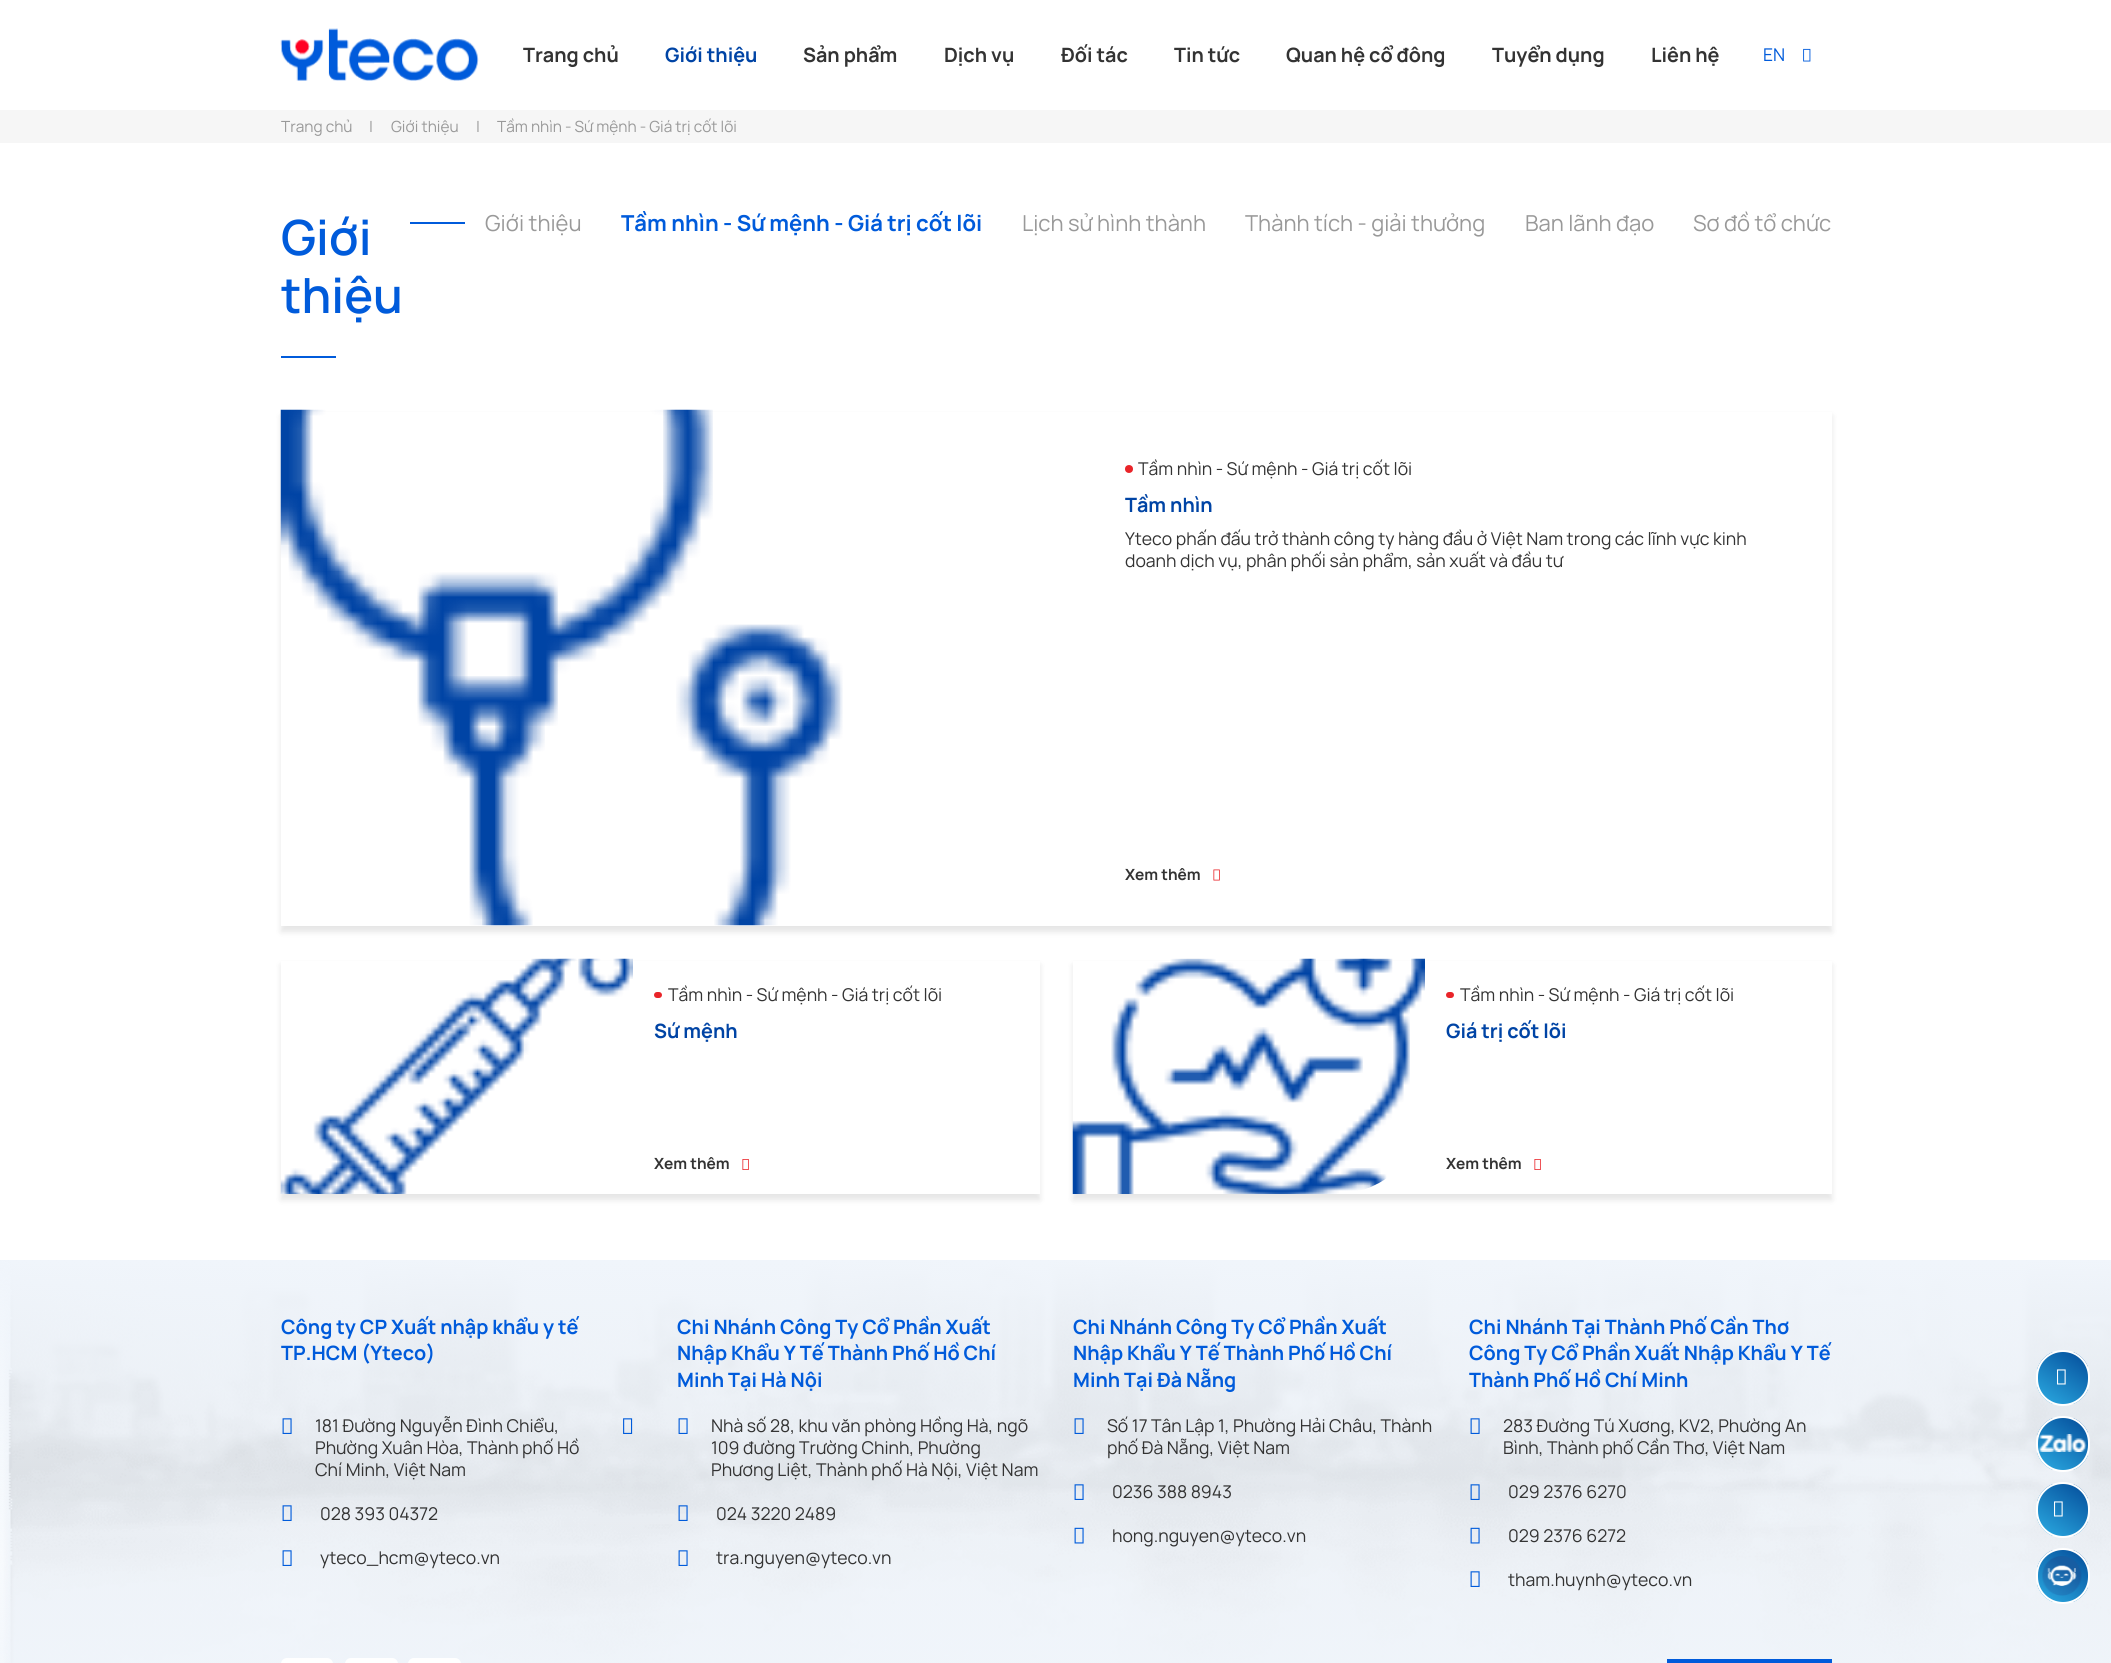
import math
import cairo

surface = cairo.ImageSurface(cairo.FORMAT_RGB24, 2111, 1663)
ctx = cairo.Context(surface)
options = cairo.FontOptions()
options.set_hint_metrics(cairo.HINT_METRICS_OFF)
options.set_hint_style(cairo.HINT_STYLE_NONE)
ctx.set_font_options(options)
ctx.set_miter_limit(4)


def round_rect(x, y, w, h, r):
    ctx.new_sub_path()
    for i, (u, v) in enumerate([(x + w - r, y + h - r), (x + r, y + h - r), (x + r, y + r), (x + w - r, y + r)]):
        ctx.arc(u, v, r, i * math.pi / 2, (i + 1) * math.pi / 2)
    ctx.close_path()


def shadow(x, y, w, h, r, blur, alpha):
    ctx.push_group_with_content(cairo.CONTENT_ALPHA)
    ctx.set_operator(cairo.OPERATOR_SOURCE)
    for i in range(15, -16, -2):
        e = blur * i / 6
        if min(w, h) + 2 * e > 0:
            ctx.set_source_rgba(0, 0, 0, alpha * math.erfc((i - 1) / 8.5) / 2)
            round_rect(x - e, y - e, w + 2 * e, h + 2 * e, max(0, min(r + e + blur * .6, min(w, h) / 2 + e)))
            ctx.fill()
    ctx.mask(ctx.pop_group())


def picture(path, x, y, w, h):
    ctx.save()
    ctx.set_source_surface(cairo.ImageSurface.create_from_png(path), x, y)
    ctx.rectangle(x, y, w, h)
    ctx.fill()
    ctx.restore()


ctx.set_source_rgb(1, 1, 1)
ctx.paint()
picture("img1.png", 280, 28, 199, 53)
ctx.select_font_face("Manrope", cairo.FONT_SLANT_NORMAL, cairo.FONT_WEIGHT_BOLD)
ctx.set_font_size(19.75)
ctx.set_source_rgb(0.2, 0.2, 0.2)
ctx.move_to(523, 62)
ctx.show_text("Trang chủ")
ctx.set_source_rgb(0, 0.267, 0.647)
ctx.move_to(665, 62)
ctx.show_text("Giới thiệu")
ctx.set_source_rgb(0.2, 0.2, 0.2)
ctx.move_to(803, 62)
ctx.show_text("Sản phẩm")
ctx.move_to(944, 62)
ctx.show_text("Dịch vụ")
ctx.move_to(1061, 62)
ctx.show_text("Đối tác")
ctx.move_to(1174, 62)
ctx.show_text("Tin tức")
ctx.move_to(1286, 62)
ctx.show_text("Quan hệ cổ đông")
ctx.move_to(1492, 62)
ctx.show_text("Tuyển dụng")
ctx.move_to(1651, 62)
ctx.show_text("Liên hệ")
ctx.select_font_face("Manrope")
ctx.set_font_size(17.6)
ctx.set_source_rgb(0, 0.357, 0.859)
ctx.move_to(1763, 61)
ctx.show_text("EN")
picture("img2.png", 1803, 48, 8, 14)
ctx.set_source_rgb(0.961, 0.961, 0.961)
ctx.rectangle(0, 110, 2111, 33)
ctx.fill()
ctx.set_font_size(15.4)
ctx.set_source_rgb(0.6, 0.6, 0.6)
ctx.move_to(281, 132)
ctx.show_text("Trang chủ")
ctx.move_to(369, 132)
ctx.show_text("|")
ctx.move_to(391, 132)
ctx.show_text("Giới thiệu")
ctx.move_to(476, 132)
ctx.show_text("|")
ctx.move_to(497, 132)
ctx.show_text("Tầm nhìn - Sứ mệnh - Giá trị cốt lõi")
ctx.select_font_face("Manrope SemiBold")
ctx.set_font_size(48.5)
ctx.set_source_rgb(0, 0.357, 0.859)
ctx.move_to(281, 255)
ctx.show_text("Giới")
ctx.move_to(281, 313)
ctx.show_text("thiệu")
ctx.rectangle(281, 356, 55, 2)
ctx.fill()
ctx.rectangle(410, 222, 55, 2)
ctx.fill()
ctx.select_font_face("Manrope")
ctx.set_font_size(22)
ctx.set_source_rgb(0.6, 0.6, 0.6)
ctx.move_to(485, 231)
ctx.show_text("Giới thiệu")
ctx.select_font_face("Manrope", cairo.FONT_SLANT_NORMAL, cairo.FONT_WEIGHT_BOLD)
ctx.set_source_rgb(0, 0.357, 0.859)
ctx.move_to(621, 231)
ctx.show_text("Tầm nhìn - Sứ mệnh - Giá trị cốt lõi")
ctx.select_font_face("Manrope")
ctx.set_source_rgb(0.6, 0.6, 0.6)
ctx.move_to(1022, 231)
ctx.show_text("Lịch sử hình thành")
ctx.move_to(1245, 231)
ctx.show_text("Thành tích - giải thưởng")
ctx.move_to(1525, 231)
ctx.show_text("Ban lãnh đạo")
ctx.move_to(1693, 231)
ctx.show_text("Sơ đồ tổ chức")
ctx.set_source_rgb(0, 0, 0)
shadow(281, 416, 1551, 516, 0, 3, 0.1)
ctx.set_source_rgb(1, 1, 1)
ctx.rectangle(281, 412, 1551, 514)
ctx.fill()
picture("img3.png", 280, 409, 563, 517)
ctx.set_source_rgb(0.914, 0.141, 0.161)
ctx.arc(1129, 469, 4, 0, 2 * math.pi)
ctx.fill()
ctx.set_font_size(17.6)
ctx.set_source_rgb(0.2, 0.2, 0.2)
ctx.move_to(1138, 475)
ctx.show_text("Tầm nhìn - Sứ mệnh - Giá trị cốt lõi")
ctx.select_font_face("Manrope", cairo.FONT_SLANT_NORMAL, cairo.FONT_WEIGHT_BOLD)
ctx.set_font_size(19.75)
ctx.set_source_rgb(0, 0.267, 0.647)
ctx.move_to(1125, 512)
ctx.show_text("Tầm nhìn")
ctx.select_font_face("Manrope")
ctx.set_font_size(17.6)
ctx.set_source_rgb(0.2, 0.2, 0.2)
ctx.move_to(1125, 545)
ctx.show_text("Yteco phấn đấu trở thành công ty hàng đầu ở Việt Nam trong các lĩnh vực kinh")
ctx.move_to(1125, 567)
ctx.show_text("doanh dịch vụ, phân phối sản phẩm, sản xuất và đầu tư")
ctx.select_font_face("Manrope", cairo.FONT_SLANT_NORMAL, cairo.FONT_WEIGHT_BOLD)
ctx.set_font_size(15.4)
ctx.move_to(1125, 880)
ctx.show_text("Xem thêm")
picture("img4.png", 1213, 869, 7, 12)
ctx.set_source_rgb(0, 0, 0)
shadow(281, 965, 759, 235, 0, 3, 0.1)
ctx.set_source_rgb(1, 1, 1)
ctx.rectangle(281, 961, 759, 233)
ctx.fill()
picture("img5.png", 280, 958, 353, 236)
ctx.set_source_rgb(0.914, 0.141, 0.161)
round_rect(654, 992, 8, 6, 3)
ctx.fill()
ctx.select_font_face("Manrope")
ctx.set_font_size(17.6)
ctx.set_source_rgb(0.2, 0.2, 0.2)
ctx.move_to(668, 1001)
ctx.show_text("Tầm nhìn - Sứ mệnh - Giá trị cốt lõi")
ctx.select_font_face("Manrope", cairo.FONT_SLANT_NORMAL, cairo.FONT_WEIGHT_BOLD)
ctx.set_font_size(19.75)
ctx.set_source_rgb(0, 0.267, 0.647)
ctx.move_to(654, 1038)
ctx.show_text("Sứ mệnh")
ctx.set_font_size(15.4)
ctx.set_source_rgb(0.2, 0.2, 0.2)
ctx.move_to(654, 1169)
ctx.show_text("Xem thêm")
picture("img6.png", 742, 1159, 7, 11)
ctx.set_source_rgb(0, 0, 0)
shadow(1073, 965, 759, 235, 0, 3, 0.1)
ctx.set_source_rgb(1, 1, 1)
ctx.rectangle(1073, 961, 759, 233)
ctx.fill()
picture("img7.png", 1072, 958, 353, 236)
ctx.set_source_rgb(0.914, 0.141, 0.161)
round_rect(1446, 992, 8, 6, 3)
ctx.fill()
ctx.select_font_face("Manrope")
ctx.set_font_size(17.6)
ctx.set_source_rgb(0.2, 0.2, 0.2)
ctx.move_to(1460, 1001)
ctx.show_text("Tầm nhìn - Sứ mệnh - Giá trị cốt lõi")
ctx.select_font_face("Manrope", cairo.FONT_SLANT_NORMAL, cairo.FONT_WEIGHT_BOLD)
ctx.set_font_size(19.75)
ctx.set_source_rgb(0, 0.267, 0.647)
ctx.move_to(1446, 1038)
ctx.show_text("Giá trị cốt lõi")
ctx.set_font_size(15.4)
ctx.set_source_rgb(0.2, 0.2, 0.2)
ctx.move_to(1446, 1169)
ctx.show_text("Xem thêm")
picture("img6.png", 1534, 1159, 7, 11)
picture("img8.png", 0, 1260, 2111, 403)
ctx.set_font_size(19.75)
ctx.set_source_rgb(0, 0.357, 0.859)
ctx.move_to(281, 1334)
ctx.show_text("Công ty CP Xuất nhập khẩu y tế")
ctx.move_to(281, 1360)
ctx.show_text("TP.HCM (Yteco)")
picture("img9.png", 282, 1418, 10, 16)
ctx.select_font_face("Manrope")
ctx.set_font_size(17.6)
ctx.set_source_rgb(0.2, 0.2, 0.2)
ctx.move_to(315, 1432)
ctx.show_text("181 Đường Nguyễn Đình Chiểu,")
picture("img10.png", 623, 1418, 10, 16)
ctx.move_to(315, 1454)
ctx.show_text("Phường Xuân Hòa, Thành phố Hồ")
ctx.move_to(315, 1476)
ctx.show_text("Chí Minh, Việt Nam")
picture("img11.png", 282, 1505, 10, 16)
ctx.move_to(320, 1520)
ctx.show_text("028 393 04372")
picture("img12.png", 282, 1550, 10, 16)
ctx.move_to(320, 1564)
ctx.show_text("yteco_hcm@yteco.vn")
ctx.select_font_face("Manrope", cairo.FONT_SLANT_NORMAL, cairo.FONT_WEIGHT_BOLD)
ctx.set_font_size(19.75)
ctx.set_source_rgb(0, 0.357, 0.859)
ctx.move_to(677, 1334)
ctx.show_text("Chi Nhánh Công Ty Cổ Phần Xuất")
ctx.move_to(677, 1360)
ctx.show_text("Nhập Khẩu Y Tế Thành Phố Hồ Chí")
ctx.move_to(677, 1387)
ctx.show_text("Minh Tại Hà Nội")
picture("img13.png", 678, 1418, 10, 16)
ctx.select_font_face("Manrope")
ctx.set_font_size(17.6)
ctx.set_source_rgb(0.2, 0.2, 0.2)
ctx.move_to(711, 1432)
ctx.show_text("Nhà số 28, khu văn phòng Hồng Hà, ngõ")
ctx.move_to(711, 1454)
ctx.show_text("109 đường Trường Chinh, Phường")
ctx.move_to(711, 1476)
ctx.show_text("Phương Liệt, Thành phố Hà Nội, Việt Nam")
picture("img14.png", 678, 1505, 10, 16)
ctx.move_to(716, 1520)
ctx.show_text("024 3220 2489")
picture("img15.png", 678, 1550, 10, 16)
ctx.move_to(716, 1564)
ctx.show_text("tra.nguyen@yteco.vn")
ctx.select_font_face("Manrope", cairo.FONT_SLANT_NORMAL, cairo.FONT_WEIGHT_BOLD)
ctx.set_font_size(19.75)
ctx.set_source_rgb(0, 0.357, 0.859)
ctx.move_to(1073, 1334)
ctx.show_text("Chi Nhánh Công Ty Cổ Phần Xuất")
ctx.move_to(1073, 1360)
ctx.show_text("Nhập Khẩu Y Tế Thành Phố Hồ Chí")
ctx.move_to(1073, 1387)
ctx.show_text("Minh Tại Đà Nẵng")
picture("img16.png", 1074, 1418, 10, 16)
ctx.select_font_face("Manrope")
ctx.set_font_size(17.6)
ctx.set_source_rgb(0.2, 0.2, 0.2)
ctx.move_to(1107, 1432)
ctx.show_text("Số 17 Tân Lập 1, Phường Hải Châu, Thành")
ctx.move_to(1107, 1454)
ctx.show_text("phố Đà Nẵng, Việt Nam")
picture("img17.png", 1074, 1484, 10, 16)
ctx.move_to(1112, 1498)
ctx.show_text("0236 388 8943")
picture("img18.png", 1074, 1527, 10, 17)
ctx.move_to(1112, 1542)
ctx.show_text("hong.nguyen@yteco.vn")
ctx.select_font_face("Manrope", cairo.FONT_SLANT_NORMAL, cairo.FONT_WEIGHT_BOLD)
ctx.set_font_size(19.75)
ctx.set_source_rgb(0, 0.357, 0.859)
ctx.move_to(1469, 1334)
ctx.show_text("Chi Nhánh Tại Thành Phố Cần Thơ")
ctx.move_to(1469, 1360)
ctx.show_text("Công Ty Cổ Phần Xuất Nhập Khẩu Y Tế")
ctx.move_to(1469, 1387)
ctx.show_text("Thành Phố Hồ Chí Minh")
picture("img19.png", 1470, 1418, 10, 16)
ctx.select_font_face("Manrope")
ctx.set_font_size(17.6)
ctx.set_source_rgb(0.2, 0.2, 0.2)
ctx.move_to(1503, 1432)
ctx.show_text("283 Đường Tú Xương, KV2, Phường An")
ctx.move_to(1503, 1454)
ctx.show_text("Bình, Thành phố Cần Thơ, Việt Nam")
picture("img20.png", 1470, 1484, 10, 16)
ctx.move_to(1508, 1498)
ctx.show_text("029 2376 6270")
picture("img21.png", 1470, 1527, 10, 17)
ctx.move_to(1508, 1542)
ctx.show_text("029 2376 6272")
picture("img22.png", 1470, 1571, 10, 16)
ctx.move_to(1508, 1586)
ctx.show_text("tham.huynh@yteco.vn")
ctx.set_source_rgb(1, 1, 1)
round_rect(281, 1658, 52, 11, 6)
ctx.fill()
round_rect(345, 1658, 53, 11, 6)
ctx.fill()
round_rect(408, 1658, 53, 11, 6)
ctx.fill()
ctx.set_source_rgb(0, 0.357, 0.859)
ctx.rectangle(1667, 1659, 165, 4)
ctx.fill()
ctx.save()
round_rect(2036, 1350, 54, 56, 27)
ctx.clip()
gradient = cairo.LinearGradient(2083, 1348, 2042, 1407)
gradient.add_color_stop_rgba(0.07, 0.024, 0.322, 0.62, 1)
gradient.add_color_stop_rgba(0.97, 0.165, 0.659, 0.878, 1)
ctx.set_source(gradient)
ctx.rectangle(2037, 1352, 51, 52)
ctx.fill()
ctx.restore()
round_rect(2037, 1351, 52, 54, 26)
ctx.set_source_rgb(1, 1, 1)
ctx.stroke()
picture("img23.png", 2057, 1369, 9, 16)
ctx.save()
round_rect(2036, 1416, 54, 56, 27)
ctx.clip()
gradient = cairo.LinearGradient(2083, 1414, 2042, 1473)
gradient.add_color_stop_rgba(0.07, 0.024, 0.322, 0.62, 1)
gradient.add_color_stop_rgba(0.97, 0.165, 0.659, 0.878, 1)
ctx.set_source(gradient)
ctx.rectangle(2037, 1418, 51, 52)
ctx.fill()
ctx.restore()
round_rect(2037, 1417, 52, 54, 26)
ctx.stroke()
picture("img24.png", 2039, 1434, 48, 18)
ctx.save()
round_rect(2036, 1482, 54, 56, 27)
ctx.clip()
gradient = cairo.LinearGradient(2083, 1480, 2042, 1539)
gradient.add_color_stop_rgba(0.07, 0.024, 0.322, 0.62, 1)
gradient.add_color_stop_rgba(0.97, 0.165, 0.659, 0.878, 1)
ctx.set_source(gradient)
ctx.rectangle(2037, 1484, 51, 52)
ctx.fill()
ctx.restore()
round_rect(2037, 1483, 52, 54, 26)
ctx.stroke()
picture("img25.png", 2054, 1501, 9, 16)
ctx.save()
round_rect(2036, 1548, 54, 56, 27)
ctx.clip()
gradient = cairo.LinearGradient(2083, 1546, 2042, 1605)
gradient.add_color_stop_rgba(0.07, 0.024, 0.322, 0.62, 1)
gradient.add_color_stop_rgba(0.97, 0.165, 0.659, 0.878, 1)
ctx.set_source(gradient)
ctx.rectangle(2037, 1550, 51, 52)
ctx.fill()
ctx.restore()
round_rect(2037, 1549, 52, 54, 26)
ctx.stroke()
picture("img26.png", 2042, 1556, 40, 40)
surface.write_to_png("page.png")
